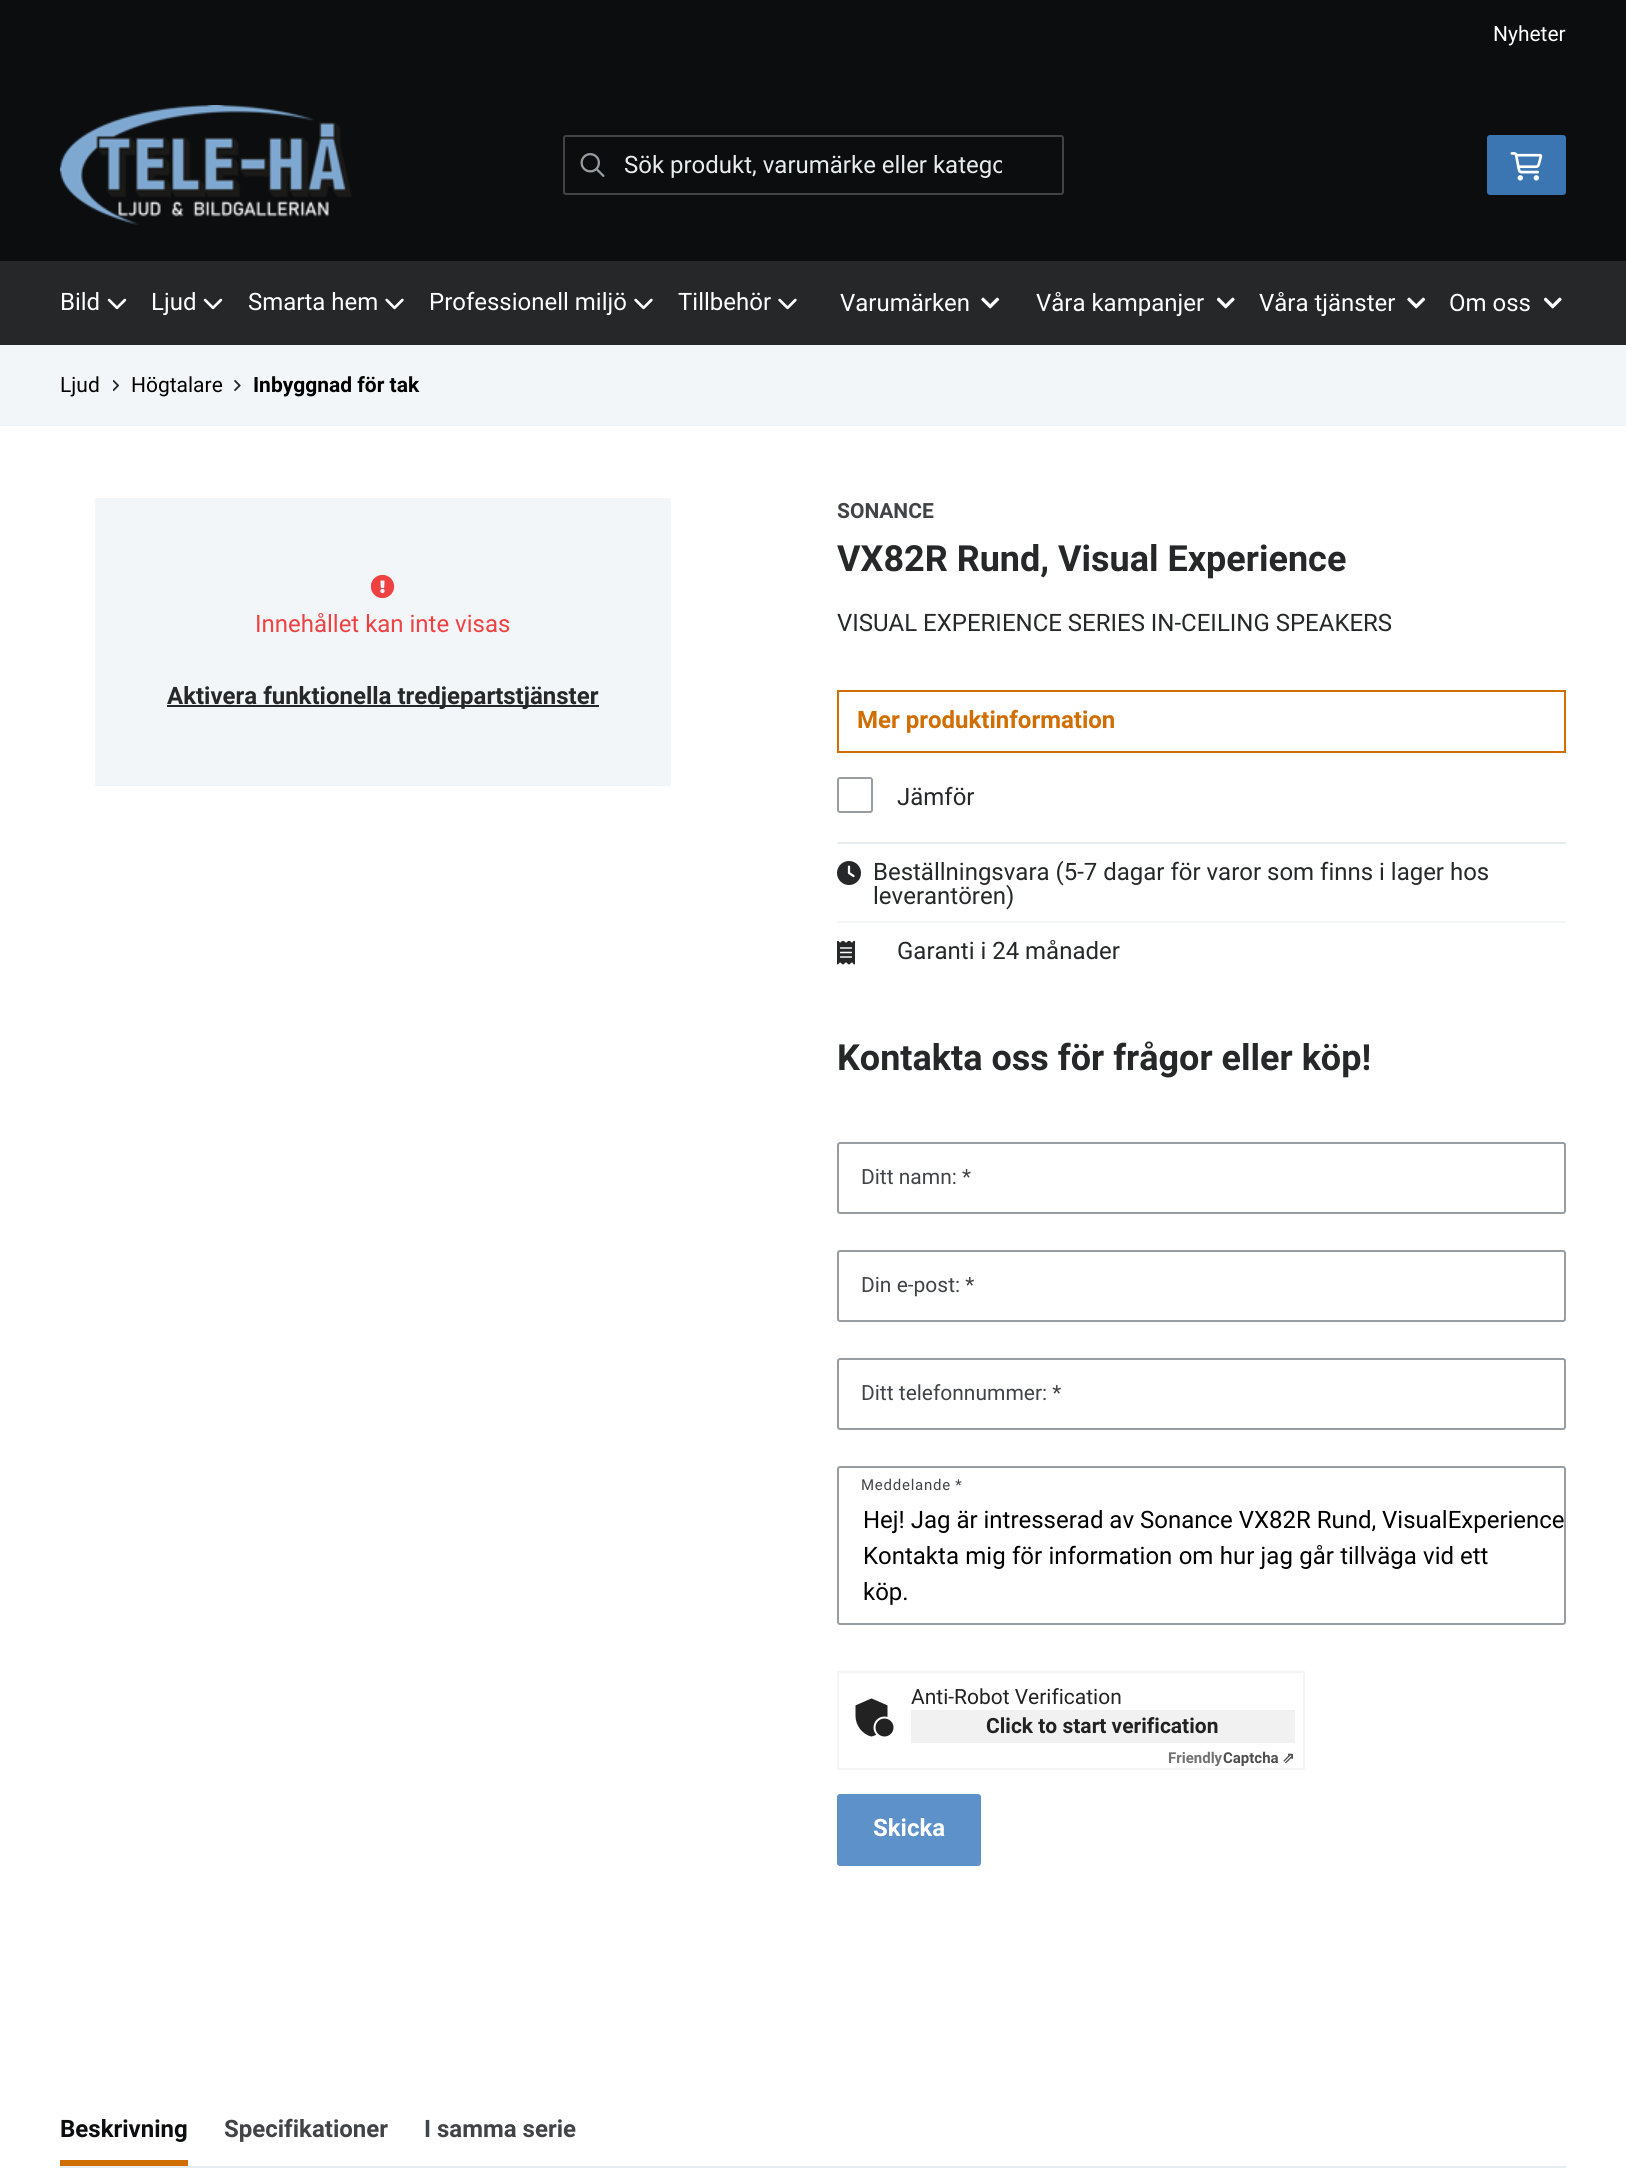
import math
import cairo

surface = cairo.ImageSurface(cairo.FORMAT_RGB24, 1626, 2178)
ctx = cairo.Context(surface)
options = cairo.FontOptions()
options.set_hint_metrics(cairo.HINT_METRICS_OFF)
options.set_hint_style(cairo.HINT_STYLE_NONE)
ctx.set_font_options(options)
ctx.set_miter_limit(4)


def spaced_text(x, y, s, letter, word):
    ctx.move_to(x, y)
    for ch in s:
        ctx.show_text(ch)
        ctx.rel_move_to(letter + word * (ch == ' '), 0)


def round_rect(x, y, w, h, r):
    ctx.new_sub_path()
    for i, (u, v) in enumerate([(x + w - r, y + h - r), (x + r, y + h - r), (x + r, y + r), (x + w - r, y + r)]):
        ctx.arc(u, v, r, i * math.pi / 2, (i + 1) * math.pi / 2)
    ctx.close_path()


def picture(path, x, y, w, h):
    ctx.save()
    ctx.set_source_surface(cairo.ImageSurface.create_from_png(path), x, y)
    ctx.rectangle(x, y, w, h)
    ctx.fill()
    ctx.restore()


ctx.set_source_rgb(1, 1, 1)
ctx.paint()
ctx.set_source_rgb(0.047, 0.051, 0.055)
ctx.rectangle(0, 0, 1626, 261)
ctx.fill()
ctx.select_font_face("Roboto")
ctx.set_font_size(21)
ctx.set_source_rgb(1, 1, 1)
ctx.move_to(1493, 41)
ctx.show_text("Nyheter")
picture("img1.png", 60, 105, 292, 120)
round_rect(564, 136, 499, 58, 2)
ctx.set_source_rgb(0.255, 0.267, 0.278)
ctx.stroke()
picture("img2.png", 580, 153, 25, 24)
ctx.save()
ctx.rectangle(624, 152, 378, 28)
ctx.clip()
ctx.set_font_size(24)
ctx.set_source_rgb(0.906, 0.922, 0.937)
ctx.move_to(624, 173)
ctx.show_text("Sök produkt, varumärke eller katego")
ctx.restore()
ctx.set_source_rgb(0.231, 0.459, 0.698)
round_rect(1487, 135, 79, 60, 3)
ctx.fill()
picture("img3.png", 1510, 152, 33, 29)
ctx.set_source_rgb(0.145, 0.153, 0.157)
ctx.rectangle(0, 261, 1626, 84)
ctx.fill()
ctx.set_font_size(24)
ctx.set_source_rgb(1, 1, 1)
ctx.move_to(60, 310)
ctx.show_text("Bild")
picture("img4.png", 107, 298, 20, 12)
ctx.move_to(151, 310)
ctx.show_text("Ljud")
picture("img4.png", 203, 298, 20, 12)
ctx.move_to(248, 310)
ctx.show_text("Smarta hem")
picture("img5.png", 385, 298, 19, 12)
ctx.move_to(429, 310)
ctx.show_text("Professionell miljö")
picture("img5.png", 634, 298, 19, 12)
ctx.move_to(678, 310)
ctx.show_text("Tillbehör")
picture("img5.png", 778, 298, 19, 12)
ctx.move_to(840, 311)
ctx.show_text("Varumärken")
picture("img6.png", 981, 297, 19, 12)
ctx.move_to(1036, 311)
ctx.show_text("Våra kampanjer")
picture("img7.png", 1217, 297, 18, 12)
ctx.move_to(1259, 311)
ctx.show_text("Våra tjänster")
picture("img8.png", 1407, 297, 18, 12)
ctx.move_to(1449, 311)
ctx.show_text("Om oss")
picture("img7.png", 1544, 297, 18, 12)
ctx.set_source_rgb(0.953, 0.961, 0.969)
ctx.rectangle(0, 345, 1626, 81)
ctx.fill()
ctx.set_font_size(21)
ctx.set_source_rgb(0, 0, 0)
ctx.move_to(60, 392)
ctx.show_text("Ljud")
picture("img9.png", 113, 379, 6, 13)
ctx.move_to(131, 392)
ctx.show_text("Högtalare")
picture("img10.png", 234, 379, 7, 13)
ctx.select_font_face("Roboto", cairo.FONT_SLANT_NORMAL, cairo.FONT_WEIGHT_BOLD)
ctx.move_to(253, 392)
ctx.show_text("Inbyggnad för tak")
ctx.set_source_rgb(0.953, 0.961, 0.969)
ctx.rectangle(95, 498, 576, 288)
ctx.fill()
picture("img11.png", 371, 575, 24, 24)
ctx.select_font_face("Roboto")
ctx.set_font_size(24)
ctx.set_source_rgb(0.937, 0.255, 0.255)
ctx.move_to(255, 632)
ctx.show_text("Innehållet kan inte visas")
ctx.set_source_rgb(0.145, 0.153, 0.157)
ctx.rectangle(167, 705, 432, 2)
ctx.fill()
ctx.select_font_face("Roboto", cairo.FONT_SLANT_NORMAL, cairo.FONT_WEIGHT_BOLD)
ctx.move_to(167, 704)
ctx.show_text("Aktivera funktionella tredjepartstjänster")
ctx.set_font_size(21)
ctx.set_source_rgb(0.255, 0.267, 0.278)
ctx.move_to(837, 518)
ctx.show_text("SONANCE")
ctx.set_font_size(36)
ctx.set_source_rgb(0.145, 0.153, 0.157)
ctx.move_to(837, 571)
ctx.show_text("VX82R Rund, Visual Experience")
ctx.select_font_face("Roboto")
ctx.set_font_size(24)
ctx.move_to(837, 631)
ctx.show_text("VISUAL EXPERIENCE SERIES IN-CEILING SPEAKERS")
ctx.rectangle(838, 691, 727, 61)
ctx.set_source_rgb(0.816, 0.431, 0.004)
ctx.stroke()
ctx.select_font_face("Roboto", cairo.FONT_SLANT_NORMAL, cairo.FONT_WEIGHT_BOLD)
ctx.move_to(857, 728)
ctx.show_text("Mer produktinformation")
ctx.set_source_rgb(0.906, 0.922, 0.937)
ctx.rectangle(837, 842, 729, 2)
ctx.fill()
round_rect(838, 778, 34, 34, 2)
ctx.set_source_rgb(0.592, 0.616, 0.631)
ctx.stroke()
ctx.select_font_face("Roboto")
ctx.set_source_rgb(0.145, 0.153, 0.157)
ctx.move_to(897, 805)
ctx.show_text("Jämför")
ctx.set_source_rgb(0.953, 0.961, 0.969)
ctx.rectangle(837, 921, 729, 2)
ctx.fill()
picture("img12.png", 837, 861, 24, 24)
ctx.set_source_rgb(0.145, 0.153, 0.157)
ctx.move_to(873, 880)
ctx.show_text("Beställningsvara (5-7 dagar för varor som finns i lager hos")
ctx.move_to(873, 904)
ctx.show_text("leverantören)")
picture("img13.png", 837, 941, 18, 24)
ctx.move_to(897, 959)
ctx.show_text("Garanti i 24 månader")
ctx.select_font_face("Roboto", cairo.FONT_SLANT_NORMAL, cairo.FONT_WEIGHT_BOLD)
ctx.set_font_size(36)
ctx.move_to(837, 1070)
ctx.show_text("Kontakta oss för frågor eller köp!")
round_rect(838, 1143, 727, 70, 2)
ctx.set_source_rgb(0.592, 0.616, 0.631)
ctx.stroke()
ctx.select_font_face("Roboto")
ctx.set_font_size(21)
ctx.set_source_rgb(0.255, 0.267, 0.278)
ctx.move_to(861, 1184)
ctx.show_text("Ditt namn: *")
round_rect(838, 1251, 727, 70, 2)
ctx.set_source_rgb(0.592, 0.616, 0.631)
ctx.stroke()
ctx.set_source_rgb(0.255, 0.267, 0.278)
ctx.move_to(861, 1292)
ctx.show_text("Din e-post: *")
round_rect(838, 1359, 727, 70, 2)
ctx.set_source_rgb(0.592, 0.616, 0.631)
ctx.stroke()
ctx.set_source_rgb(0.255, 0.267, 0.278)
ctx.move_to(861, 1400)
ctx.show_text("Ditt telefonnummer: *")
round_rect(838, 1467, 727, 157, 2)
ctx.set_source_rgb(0.592, 0.616, 0.631)
ctx.stroke()
ctx.set_font_size(15)
ctx.set_source_rgb(0.255, 0.267, 0.278)
spaced_text(861, 1490, "Meddelande *", 0.75, 0)
ctx.set_font_size(24)
ctx.set_source_rgb(0, 0, 0)
ctx.move_to(863, 1528)
ctx.show_text("Hej! Jag är intresserad av Sonance VX82R Rund, VisualExperience")
spaced_text(863, 1564, "Kontakta mig för information om hur jag går tillväga vid", 0, 0.4)
ctx.move_to(1460, 1564)
ctx.show_text("ett")
ctx.move_to(863, 1600)
ctx.show_text("köp.")
ctx.rectangle(838, 1672, 466, 97)
ctx.set_source_rgb(0.957, 0.957, 0.957)
ctx.stroke()
picture("img14.png", 855, 1698, 39, 39)
ctx.set_font_size(21)
ctx.set_source_rgb(0.133, 0.133, 0.133)
ctx.move_to(911, 1704)
ctx.show_text("Anti-Robot Verification")
ctx.set_source_rgb(0.945, 0.945, 0.945)
ctx.rectangle(911, 1710, 384, 33)
ctx.fill()
ctx.select_font_face("Roboto", cairo.FONT_SLANT_NORMAL, cairo.FONT_WEIGHT_BOLD)
ctx.set_source_rgb(0.133, 0.133, 0.133)
ctx.move_to(986, 1733)
ctx.show_text("Click to start verification")
ctx.set_font_size(15)
ctx.set_source_rgb(0.447, 0.447, 0.447)
ctx.move_to(1168, 1763)
ctx.show_text("Friendly")
ctx.set_source_rgb(0.306, 0.306, 0.306)
ctx.move_to(1223, 1763)
ctx.show_text("Captcha")
ctx.select_font_face("DejaVu Sans", cairo.FONT_SLANT_NORMAL, cairo.FONT_WEIGHT_BOLD)
ctx.move_to(1282, 1763)
ctx.show_text("⇗")
ctx.set_source_rgb(0.361, 0.569, 0.788)
round_rect(837, 1794, 144, 72, 3)
ctx.fill()
ctx.select_font_face("Roboto", cairo.FONT_SLANT_NORMAL, cairo.FONT_WEIGHT_BOLD)
ctx.set_font_size(24)
ctx.set_source_rgb(1, 1, 1)
ctx.move_to(873, 1836)
ctx.show_text("Skicka")
ctx.set_source_rgb(0.906, 0.922, 0.937)
ctx.rectangle(60, 2166, 1506, 2)
ctx.fill()
ctx.set_source_rgb(0.047, 0.051, 0.055)
ctx.move_to(60, 2137)
ctx.show_text("Beskrivning")
ctx.set_source_rgb(0.816, 0.431, 0.004)
ctx.rectangle(60, 2160, 128, 6)
ctx.fill()
ctx.set_source_rgb(0.255, 0.267, 0.278)
ctx.move_to(224, 2137)
ctx.show_text("Specifikationer")
ctx.move_to(424, 2137)
ctx.show_text("I samma serie")
surface.write_to_png("page.png")
